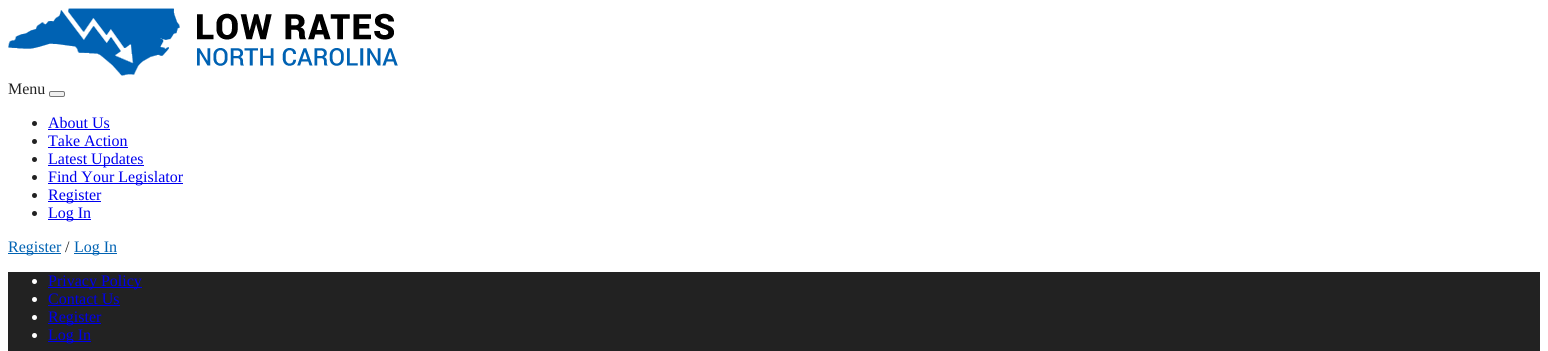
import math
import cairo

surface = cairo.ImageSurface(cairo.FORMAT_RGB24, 1548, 351)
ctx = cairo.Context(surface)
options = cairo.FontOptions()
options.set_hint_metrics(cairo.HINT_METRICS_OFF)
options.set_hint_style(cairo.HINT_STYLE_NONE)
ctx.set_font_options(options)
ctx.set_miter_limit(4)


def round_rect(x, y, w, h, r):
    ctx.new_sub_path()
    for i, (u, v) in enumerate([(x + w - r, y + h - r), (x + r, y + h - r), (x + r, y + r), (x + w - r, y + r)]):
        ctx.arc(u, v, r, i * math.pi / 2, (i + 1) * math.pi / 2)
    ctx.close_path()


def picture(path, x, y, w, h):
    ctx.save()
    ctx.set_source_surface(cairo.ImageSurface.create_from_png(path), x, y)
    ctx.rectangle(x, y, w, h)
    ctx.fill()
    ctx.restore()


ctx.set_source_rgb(1, 1, 1)
ctx.paint()
picture("img1.png", 8, 8, 390, 68)
ctx.select_font_face("Liberation Serif")
ctx.set_font_size(16)
ctx.set_source_rgb(0.133, 0.133, 0.133)
ctx.move_to(8, 94)
ctx.show_text("Menu")
ctx.set_source_rgb(0.937, 0.937, 0.937)
round_rect(49.5, 91.5, 15, 5, 1.5)
ctx.fill_preserve()
ctx.set_source_rgb(0.463, 0.463, 0.463)
ctx.set_line_width(1)
ctx.stroke()
ctx.set_source_rgb(0.133, 0.133, 0.133)
ctx.arc(34.5, 123.5, 2.5, 0, 2 * math.pi)
ctx.fill()
ctx.set_source_rgb(0, 0, 0.933)
ctx.move_to(48, 128)
ctx.show_text("About Us")
ctx.rectangle(48, 129, 62, 1)
ctx.fill()
ctx.set_source_rgb(0.133, 0.133, 0.133)
ctx.arc(34.5, 141.5, 2.5, 0, 2 * math.pi)
ctx.fill()
ctx.set_source_rgb(0, 0, 0.933)
ctx.move_to(48, 146)
ctx.show_text("Take Action")
ctx.rectangle(48, 147, 80, 1)
ctx.fill()
ctx.set_source_rgb(0.133, 0.133, 0.133)
ctx.arc(34.5, 159.5, 2.5, 0, 2 * math.pi)
ctx.fill()
ctx.set_source_rgb(0, 0, 0.933)
ctx.rectangle(48, 165, 96, 1)
ctx.fill()
ctx.move_to(48, 164)
ctx.show_text("Latest Updates")
ctx.set_source_rgb(0.133, 0.133, 0.133)
ctx.new_path()
ctx.arc(34.5, 177.5, 2.5, 0, 2 * math.pi)
ctx.fill()
ctx.set_source_rgb(0, 0, 0.933)
ctx.rectangle(48, 183, 135, 1)
ctx.fill()
ctx.move_to(48, 182)
ctx.show_text("Find Your Legislator")
ctx.set_source_rgb(0.133, 0.133, 0.133)
ctx.new_path()
ctx.arc(34.5, 195.5, 2.5, 0, 2 * math.pi)
ctx.fill()
ctx.set_source_rgb(0, 0, 0.933)
ctx.rectangle(48, 201, 53, 1)
ctx.fill()
ctx.move_to(48, 200)
ctx.show_text("Register")
ctx.set_source_rgb(0.133, 0.133, 0.133)
ctx.new_path()
ctx.arc(34.5, 213.5, 2.5, 0, 2 * math.pi)
ctx.fill()
ctx.set_source_rgb(0, 0, 0.933)
ctx.rectangle(48, 219, 43, 1)
ctx.fill()
ctx.move_to(48, 218)
ctx.show_text("Log In")
ctx.set_source_rgb(0, 0.384, 0.702)
ctx.rectangle(8, 253, 53, 1)
ctx.fill()
ctx.move_to(8, 252)
ctx.show_text("Register")
ctx.set_source_rgb(0.133, 0.133, 0.133)
ctx.move_to(65, 252)
ctx.show_text("/")
ctx.set_source_rgb(0, 0.384, 0.702)
ctx.rectangle(74, 253, 43, 1)
ctx.fill()
ctx.move_to(74, 252)
ctx.show_text("Log In")
ctx.set_source_rgb(0.133, 0.133, 0.133)
ctx.rectangle(8, 272, 1532, 79)
ctx.fill()
ctx.set_source_rgb(1, 1, 1)
ctx.arc(34.5, 281.5, 2.5, 0, 2 * math.pi)
ctx.fill()
ctx.set_source_rgb(0, 0, 0.933)
ctx.rectangle(48, 287, 94, 1)
ctx.fill()
ctx.move_to(48, 286)
ctx.show_text("Privacy Policy")
ctx.set_source_rgb(1, 1, 1)
ctx.new_path()
ctx.arc(34.5, 299.5, 2.5, 0, 2 * math.pi)
ctx.fill()
ctx.set_source_rgb(0, 0, 0.933)
ctx.move_to(48, 304)
ctx.show_text("Contact Us")
ctx.rectangle(48, 305, 72, 1)
ctx.fill()
ctx.set_source_rgb(1, 1, 1)
ctx.arc(34.5, 317.5, 2.5, 0, 2 * math.pi)
ctx.fill()
ctx.set_source_rgb(0, 0, 0.933)
ctx.rectangle(48, 323, 53, 1)
ctx.fill()
ctx.move_to(48, 322)
ctx.show_text("Register")
ctx.set_source_rgb(1, 1, 1)
ctx.new_path()
ctx.arc(34.5, 335.5, 2.5, 0, 2 * math.pi)
ctx.fill()
ctx.set_source_rgb(0, 0, 0.933)
ctx.rectangle(48, 341, 43, 1)
ctx.fill()
ctx.move_to(48, 340)
ctx.show_text("Log In")
surface.write_to_png("page.png")
